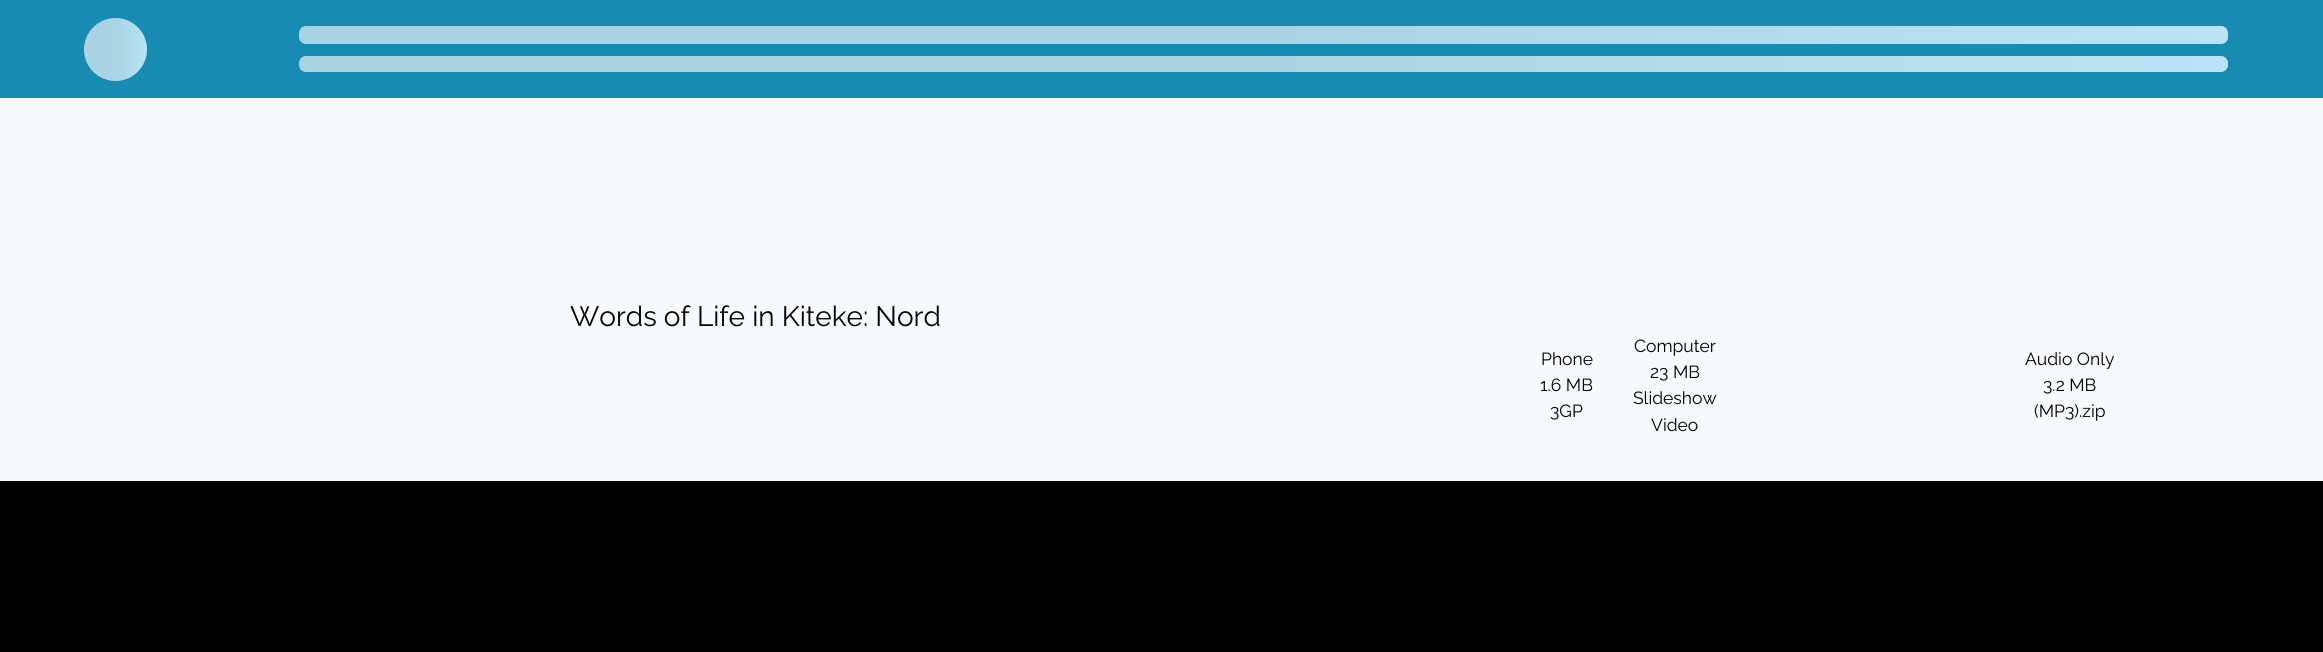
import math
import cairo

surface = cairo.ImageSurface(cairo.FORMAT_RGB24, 2323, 652)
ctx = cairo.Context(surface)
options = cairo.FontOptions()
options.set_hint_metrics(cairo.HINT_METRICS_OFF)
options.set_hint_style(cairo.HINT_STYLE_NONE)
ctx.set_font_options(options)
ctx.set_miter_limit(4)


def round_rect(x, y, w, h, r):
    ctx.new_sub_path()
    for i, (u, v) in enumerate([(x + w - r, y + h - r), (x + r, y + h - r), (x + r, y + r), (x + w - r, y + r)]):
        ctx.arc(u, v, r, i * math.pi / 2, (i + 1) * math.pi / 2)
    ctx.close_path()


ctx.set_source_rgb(0.961, 0.98, 0.992)
ctx.paint()
ctx.set_source_rgb(0.09, 0.545, 0.698)
ctx.rectangle(0, 0, 2323, 98)
ctx.fill()
gradient = cairo.LinearGradient(84, 49, 210, 49)
gradient.add_color_stop_rgba(0.25, 0.667, 0.831, 0.89, 1)
gradient.add_color_stop_rgba(0.5, 0.729, 0.894, 0.953, 1)
gradient.add_color_stop_rgba(0.75, 0.667, 0.831, 0.89, 1)
ctx.set_source(gradient)
ctx.arc(115.5, 49.5, 31.5, 0, 2 * math.pi)
ctx.fill()
gradient = cairo.LinearGradient(299, 35, 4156, 35)
gradient.add_color_stop_rgba(0.25, 0.667, 0.831, 0.89, 1)
gradient.add_color_stop_rgba(0.5, 0.729, 0.894, 0.953, 1)
gradient.add_color_stop_rgba(0.75, 0.667, 0.831, 0.89, 1)
ctx.set_source(gradient)
round_rect(299, 26, 1929, 18, 7)
ctx.fill()
gradient = cairo.LinearGradient(299, 64, 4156, 64)
gradient.add_color_stop_rgba(0.25, 0.667, 0.831, 0.89, 1)
gradient.add_color_stop_rgba(0.5, 0.729, 0.894, 0.953, 1)
gradient.add_color_stop_rgba(0.75, 0.667, 0.831, 0.89, 1)
ctx.set_source(gradient)
round_rect(299, 56, 1929, 16, 7)
ctx.fill()
ctx.select_font_face("Raleway")
ctx.set_font_size(28)
ctx.set_source_rgb(0, 0, 0)
ctx.move_to(570, 326)
ctx.show_text("Words of Life in Kiteke: Nord")
ctx.set_font_size(17.5)
ctx.move_to(1541, 365)
ctx.show_text("Phone")
ctx.move_to(1540, 391)
ctx.show_text("1.6 MB")
ctx.move_to(1550, 417)
ctx.show_text("3GP")
ctx.move_to(1634, 352)
ctx.show_text("Computer")
ctx.move_to(1650, 378)
ctx.show_text("23 MB")
ctx.move_to(1633, 404)
ctx.show_text("Slideshow")
ctx.move_to(1651, 431)
ctx.show_text("Video")
ctx.move_to(2025, 365)
ctx.show_text("Audio Only")
ctx.move_to(2043, 391)
ctx.show_text("3.2 MB")
ctx.move_to(2034, 417)
ctx.show_text("(MP3).zip")
ctx.rectangle(0, 481, 2323, 171)
ctx.fill()
surface.write_to_png("page.png")
